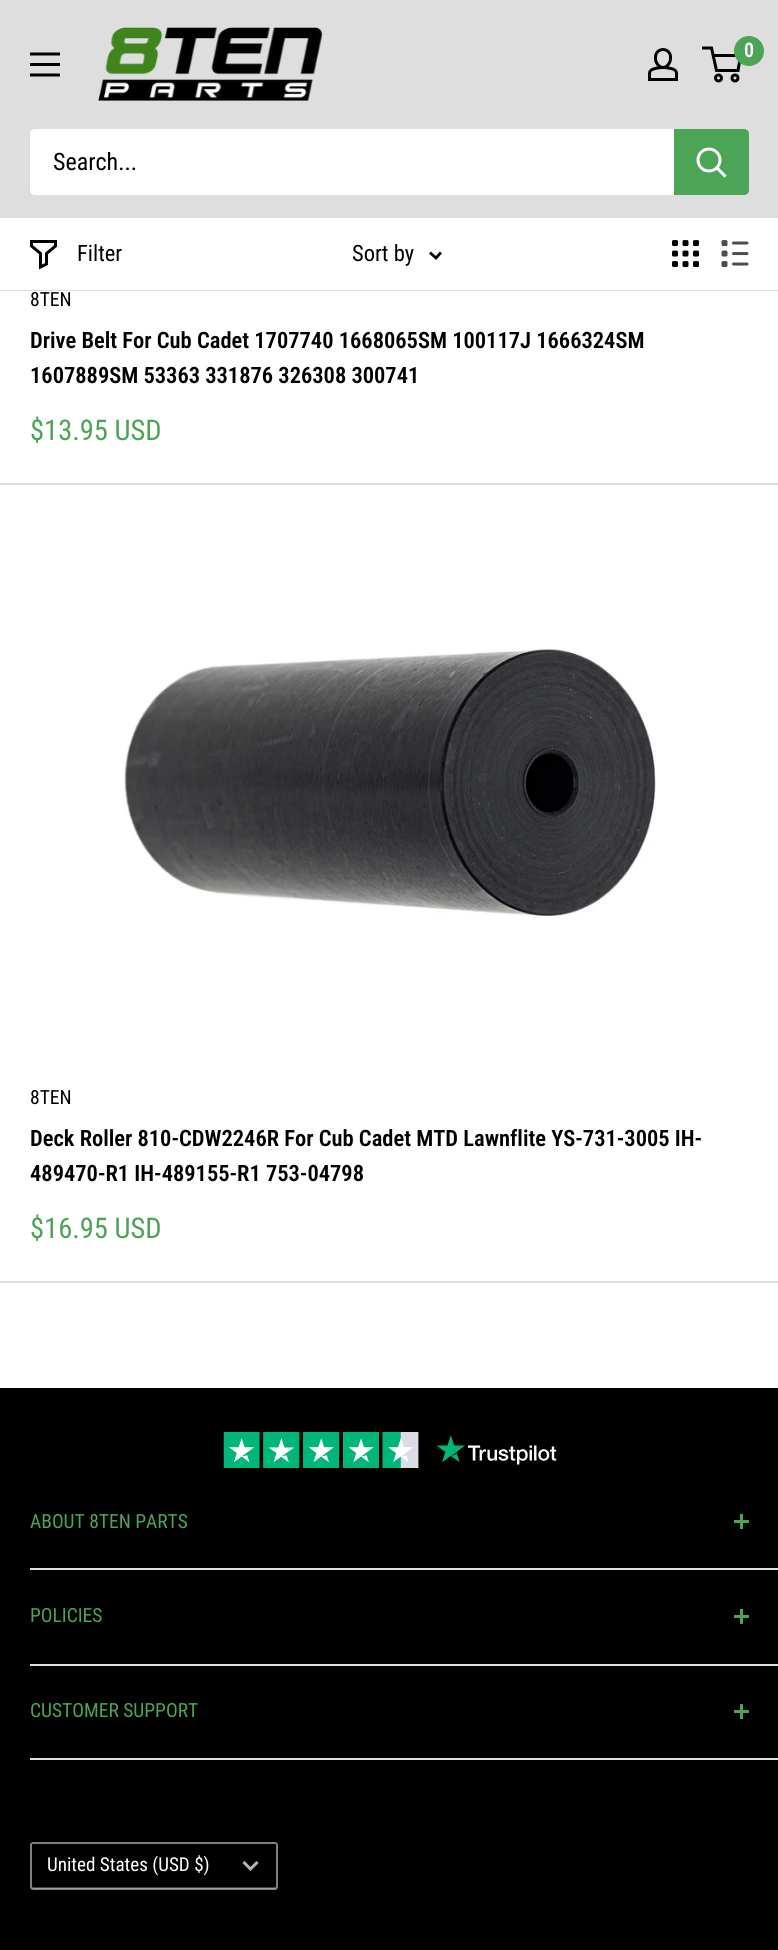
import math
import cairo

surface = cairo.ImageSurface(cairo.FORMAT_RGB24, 778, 1950)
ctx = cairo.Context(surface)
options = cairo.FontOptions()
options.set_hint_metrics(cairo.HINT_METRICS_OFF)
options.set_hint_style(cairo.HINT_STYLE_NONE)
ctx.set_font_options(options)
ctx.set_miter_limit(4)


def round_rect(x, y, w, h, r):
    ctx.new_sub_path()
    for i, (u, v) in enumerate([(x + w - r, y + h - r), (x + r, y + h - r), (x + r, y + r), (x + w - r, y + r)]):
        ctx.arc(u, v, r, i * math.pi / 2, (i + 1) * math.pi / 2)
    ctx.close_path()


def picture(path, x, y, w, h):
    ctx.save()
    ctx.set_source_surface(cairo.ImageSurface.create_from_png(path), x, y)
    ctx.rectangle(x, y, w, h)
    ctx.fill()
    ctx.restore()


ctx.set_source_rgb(1, 1, 1)
ctx.paint()
ctx.set_source_rgb(0.871, 0.871, 0.871)
ctx.rectangle(0, 0, 778, 218)
ctx.fill()
picture("img1.png", 98, 27, 225, 74)
picture("img2.png", 648, 48, 30, 33)
ctx.arc(718.5, 78, 3, 0, 2 * math.pi)
ctx.set_source_rgb(0, 0, 0)
ctx.set_line_width(3)
ctx.stroke()
ctx.arc(735, 78, 3, 0, 2 * math.pi)
ctx.stroke()
ctx.new_path()
ctx.move_to(713, 55.5)
ctx.line_to(740.5, 55.5)
ctx.line_to(738, 70.5)
ctx.line_to(716.5, 70.5)
ctx.line_to(711.5, 48)
ctx.line_to(702, 48)
ctx.stroke()
ctx.set_source_rgb(0.298, 0.643, 0.337)
ctx.arc(749, 51, 15, 0, 2 * math.pi)
ctx.fill()
ctx.select_font_face("Roboto Condensed SemiBold")
ctx.set_font_size(20)
ctx.set_source_rgb(1, 1, 1)
ctx.move_to(744, 57)
ctx.show_text("0")
picture("img3.png", 30, 52, 30, 25)
round_rect(30, 129, 719, 66, 5)
ctx.fill()
ctx.select_font_face("Roboto Condensed")
ctx.set_font_size(24)
ctx.set_source_rgb(0, 0, 0)
ctx.move_to(53, 170)
ctx.show_text("Search...")
ctx.set_source_rgb(0.298, 0.643, 0.337)
ctx.new_path()
ctx.move_to(674, 129)
ctx.line_to(744, 129)
ctx.curve_to(747, 129, 749, 131, 749, 134)
ctx.line_to(749, 190)
ctx.curve_to(749, 193, 747, 195, 744, 195)
ctx.line_to(674, 195)
ctx.close_path()
ctx.fill()
ctx.new_path()
ctx.move_to(724.5, 175.5)
ctx.line_to(717, 168)
ctx.set_source_rgb(1, 1, 1)
ctx.set_line_cap(cairo.LINE_CAP_SQUARE)
ctx.stroke()
ctx.arc(709, 160, 11, 0, 2 * math.pi)
ctx.set_line_cap(cairo.LINE_CAP_BUTT)
ctx.stroke()
ctx.set_source_rgb(0.871, 0.871, 0.871)
ctx.rectangle(0, 1281, 778, 2)
ctx.fill()
ctx.new_path()
ctx.move_to(0, 290)
ctx.line_to(0, 291)
ctx.line_to(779, 291)
ctx.line_to(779, 219)
ctx.line_to(778, 219)
ctx.line_to(778, 290)
ctx.close_path()
ctx.fill()
ctx.new_path()
ctx.move_to(55.5, 246)
ctx.line_to(46.5, 253.5)
ctx.line_to(46.5, 264)
ctx.line_to(40.5, 267)
ctx.line_to(40.5, 253.5)
ctx.line_to(31.5, 246)
ctx.line_to(31.5, 241.5)
ctx.line_to(55.5, 241.5)
ctx.close_path()
ctx.set_source_rgb(0, 0, 0)
ctx.set_line_cap(cairo.LINE_CAP_SQUARE)
ctx.stroke()
ctx.set_font_size(22.5)
ctx.move_to(77, 261)
ctx.show_text("Filter")
ctx.move_to(352, 261)
ctx.show_text("Sort by")
ctx.new_path()
ctx.move_to(440, 253.5)
ctx.line_to(436, 258)
ctx.line_to(431, 253.5)
ctx.set_line_width(2.8)
ctx.stroke()
picture("img4.png", 672, 240, 27, 28)
picture("img5.png", 721, 240, 28, 28)
ctx.set_font_size(19.5)
ctx.move_to(30, 306)
ctx.show_text("8TEN")
ctx.select_font_face("Roboto Condensed SemiBold")
ctx.set_font_size(22.5)
ctx.move_to(30, 348)
ctx.show_text("Drive Belt For Cub Cadet 1707740 1668065SM 100117J 1666324SM")
ctx.move_to(30, 383)
ctx.show_text("1607889SM 53363 331876 326308 300741")
ctx.select_font_face("Roboto Condensed")
ctx.set_font_size(28.5)
ctx.set_source_rgb(0.298, 0.643, 0.337)
ctx.move_to(30, 440)
ctx.show_text("$13.95 USD")
ctx.set_source_rgb(0.871, 0.871, 0.871)
ctx.new_path()
ctx.move_to(0, 483)
ctx.line_to(0, 485)
ctx.line_to(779, 485)
ctx.line_to(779, -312)
ctx.line_to(778, -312)
ctx.line_to(778, 483)
ctx.close_path()
ctx.fill()
picture("img6.png", 123, 649, 533, 269)
ctx.set_font_size(19.5)
ctx.set_source_rgb(0, 0, 0)
ctx.move_to(30, 1104)
ctx.show_text("8TEN")
ctx.select_font_face("Roboto Condensed SemiBold")
ctx.set_font_size(22.5)
ctx.move_to(30, 1146)
ctx.show_text("Deck Roller 810-CDW2246R For Cub Cadet MTD Lawnflite YS-731-3005 IH-")
ctx.move_to(30, 1181)
ctx.show_text("489470-R1 IH-489155-R1 753-04798")
ctx.select_font_face("Roboto Condensed")
ctx.set_font_size(28.5)
ctx.set_source_rgb(0.298, 0.643, 0.337)
ctx.move_to(30, 1238)
ctx.show_text("$16.95 USD")
ctx.set_source_rgb(0, 0, 0)
ctx.rectangle(0, 1388, 778, 562)
ctx.fill()
picture("img7.png", 223, 1432, 334, 36)
ctx.set_source_rgb(0.871, 0.871, 0.871)
ctx.rectangle(30, 1568, 748, 2)
ctx.fill()
ctx.set_font_size(19.5)
ctx.set_source_rgb(0.298, 0.643, 0.337)
ctx.move_to(30, 1528)
ctx.show_text("ABOUT 8TEN PARTS")
ctx.rectangle(740, 1514, 3, 15)
ctx.fill()
ctx.rectangle(734, 1520, 15, 3)
ctx.fill()
ctx.set_source_rgb(0.871, 0.871, 0.871)
ctx.rectangle(30, 1664, 748, 2)
ctx.fill()
ctx.set_source_rgb(0.298, 0.643, 0.337)
ctx.move_to(30, 1622)
ctx.show_text("POLICIES")
ctx.rectangle(740, 1609, 3, 15)
ctx.fill()
ctx.rectangle(734, 1615, 15, 3)
ctx.fill()
ctx.set_source_rgb(0.871, 0.871, 0.871)
ctx.rectangle(30, 1758, 748, 2)
ctx.fill()
ctx.set_source_rgb(0.298, 0.643, 0.337)
ctx.move_to(30, 1717)
ctx.show_text("CUSTOMER SUPPORT")
ctx.rectangle(740, 1704, 3, 15)
ctx.fill()
ctx.rectangle(734, 1710, 15, 3)
ctx.fill()
ctx.set_source_rgb(0.263, 0.263, 0.263)
ctx.new_path()
ctx.move_to(32, 1886)
ctx.curve_to(32, 1887, 32, 1889, 34, 1889)
ctx.line_to(275, 1889)
ctx.curve_to(276, 1888, 276, 1887, 276, 1886)
ctx.line_to(274, 1887)
ctx.line_to(33, 1887)
ctx.close_path()
ctx.fill()
round_rect(31, 1843, 246, 46, 2)
ctx.set_source_rgba(1, 1, 1, 0.5)
ctx.set_line_width(2)
ctx.set_line_cap(cairo.LINE_CAP_BUTT)
ctx.stroke()
ctx.set_font_size(19.1)
ctx.set_source_rgb(1, 1, 1)
ctx.move_to(47, 1871)
ctx.show_text("United States (USD $)")
ctx.new_path()
ctx.move_to(256.5, 1863)
ctx.line_to(250.5, 1869)
ctx.line_to(244.5, 1863)
ctx.set_source_rgb(0.702, 0.702, 0.702)
ctx.set_line_width(3)
ctx.set_line_cap(cairo.LINE_CAP_SQUARE)
ctx.stroke()
surface.write_to_png("page.png")
